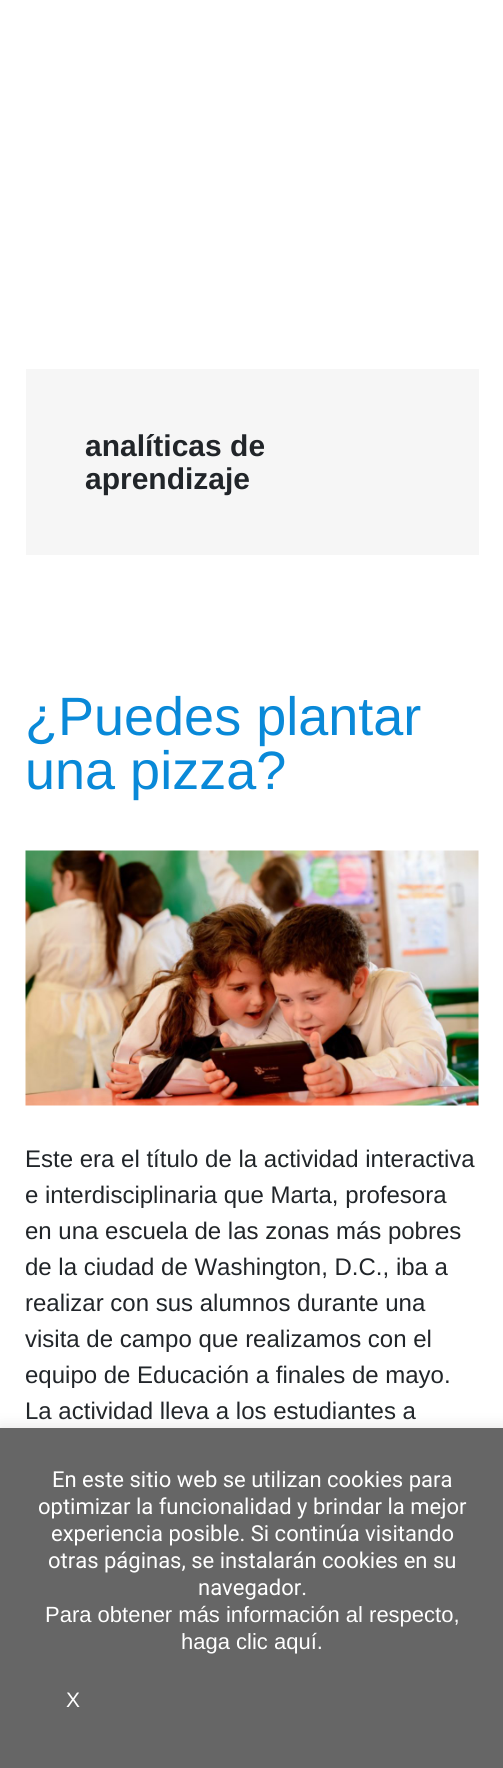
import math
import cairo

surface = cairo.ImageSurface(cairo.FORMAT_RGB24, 503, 1768)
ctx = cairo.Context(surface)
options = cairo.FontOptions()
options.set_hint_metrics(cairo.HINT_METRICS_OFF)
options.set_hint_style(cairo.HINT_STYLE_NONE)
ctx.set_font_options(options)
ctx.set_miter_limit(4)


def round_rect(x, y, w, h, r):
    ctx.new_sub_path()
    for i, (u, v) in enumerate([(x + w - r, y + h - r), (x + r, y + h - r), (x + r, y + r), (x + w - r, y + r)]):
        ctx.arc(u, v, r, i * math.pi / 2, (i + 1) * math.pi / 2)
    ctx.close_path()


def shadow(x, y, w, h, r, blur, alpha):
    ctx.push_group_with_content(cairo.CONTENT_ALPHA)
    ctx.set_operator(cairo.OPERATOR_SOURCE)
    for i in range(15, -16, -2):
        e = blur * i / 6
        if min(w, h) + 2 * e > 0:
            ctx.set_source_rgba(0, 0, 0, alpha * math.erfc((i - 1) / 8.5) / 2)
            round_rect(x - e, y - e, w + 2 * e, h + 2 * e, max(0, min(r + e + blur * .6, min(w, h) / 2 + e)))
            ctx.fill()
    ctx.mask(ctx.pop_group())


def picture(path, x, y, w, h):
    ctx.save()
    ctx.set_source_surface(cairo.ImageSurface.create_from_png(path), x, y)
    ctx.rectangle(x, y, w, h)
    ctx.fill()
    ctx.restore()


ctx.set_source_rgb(1, 1, 1)
ctx.paint()
ctx.set_source_rgb(0.961, 0.961, 0.961)
ctx.rectangle(26, 369, 453, 186)
ctx.fill()
ctx.select_font_face("Liberation Sans", cairo.FONT_SLANT_NORMAL, cairo.FONT_WEIGHT_BOLD)
ctx.set_font_size(30)
ctx.set_source_rgb(0.129, 0.145, 0.161)
ctx.move_to(85, 456)
ctx.show_text("analíticas de")
ctx.move_to(85, 489)
ctx.show_text("aprendizaje")
ctx.select_font_face("Liberation Sans")
ctx.set_font_size(54)
ctx.set_source_rgb(0.039, 0.537, 0.847)
ctx.move_to(25, 735)
ctx.show_text("¿Puedes plantar")
ctx.move_to(25, 789)
ctx.show_text("una pizza?")
picture("img1.png", 25, 850, 454, 256)
ctx.set_font_size(24)
ctx.set_source_rgb(0.129, 0.145, 0.161)
ctx.move_to(25, 1167)
ctx.show_text("Este era el título de la actividad interactiva")
ctx.move_to(25, 1203)
ctx.show_text("e interdisciplinaria que Marta, profesora")
ctx.move_to(25, 1239)
ctx.show_text("en una escuela de las zonas más pobres")
ctx.move_to(25, 1275)
ctx.show_text("de la ciudad de Washington, D.C., iba a")
ctx.move_to(25, 1311)
ctx.show_text("realizar con sus alumnos durante una")
ctx.move_to(25, 1347)
ctx.show_text("visita de campo que realizamos con el")
ctx.move_to(25, 1383)
ctx.show_text("equipo de Educación a finales de mayo.")
ctx.move_to(25, 1419)
ctx.show_text("La actividad lleva a los estudiantes a")
ctx.set_source_rgb(0.675, 0.671, 0.671)
shadow(0, 1427, 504, 340, 0, 7.5, 0.3)
ctx.set_source_rgb(0.4, 0.4, 0.4)
ctx.rectangle(0, 1428, 503, 340)
ctx.fill()
ctx.select_font_face("Roboto")
ctx.set_font_size(22)
ctx.set_source_rgb(1, 1, 1)
ctx.move_to(52, 1487)
ctx.show_text("En este sitio web se utilizan cookies para")
ctx.move_to(38, 1514)
ctx.show_text("optimizar la funcionalidad y brindar la mejor")
ctx.move_to(51, 1541)
ctx.show_text("experiencia posible. Si continúa visitando")
ctx.move_to(48, 1568)
ctx.show_text("otras páginas, se instalarán cookies en su")
ctx.move_to(198, 1595)
ctx.show_text("navegador.")
ctx.select_font_face("Liberation Sans")
ctx.move_to(45, 1622)
ctx.show_text("Para obtener más información al respecto,")
ctx.move_to(181, 1649)
ctx.show_text("haga clic aquí.")
ctx.set_font_size(21)
ctx.move_to(66, 1707)
ctx.show_text("X")
surface.write_to_png("page.png")
